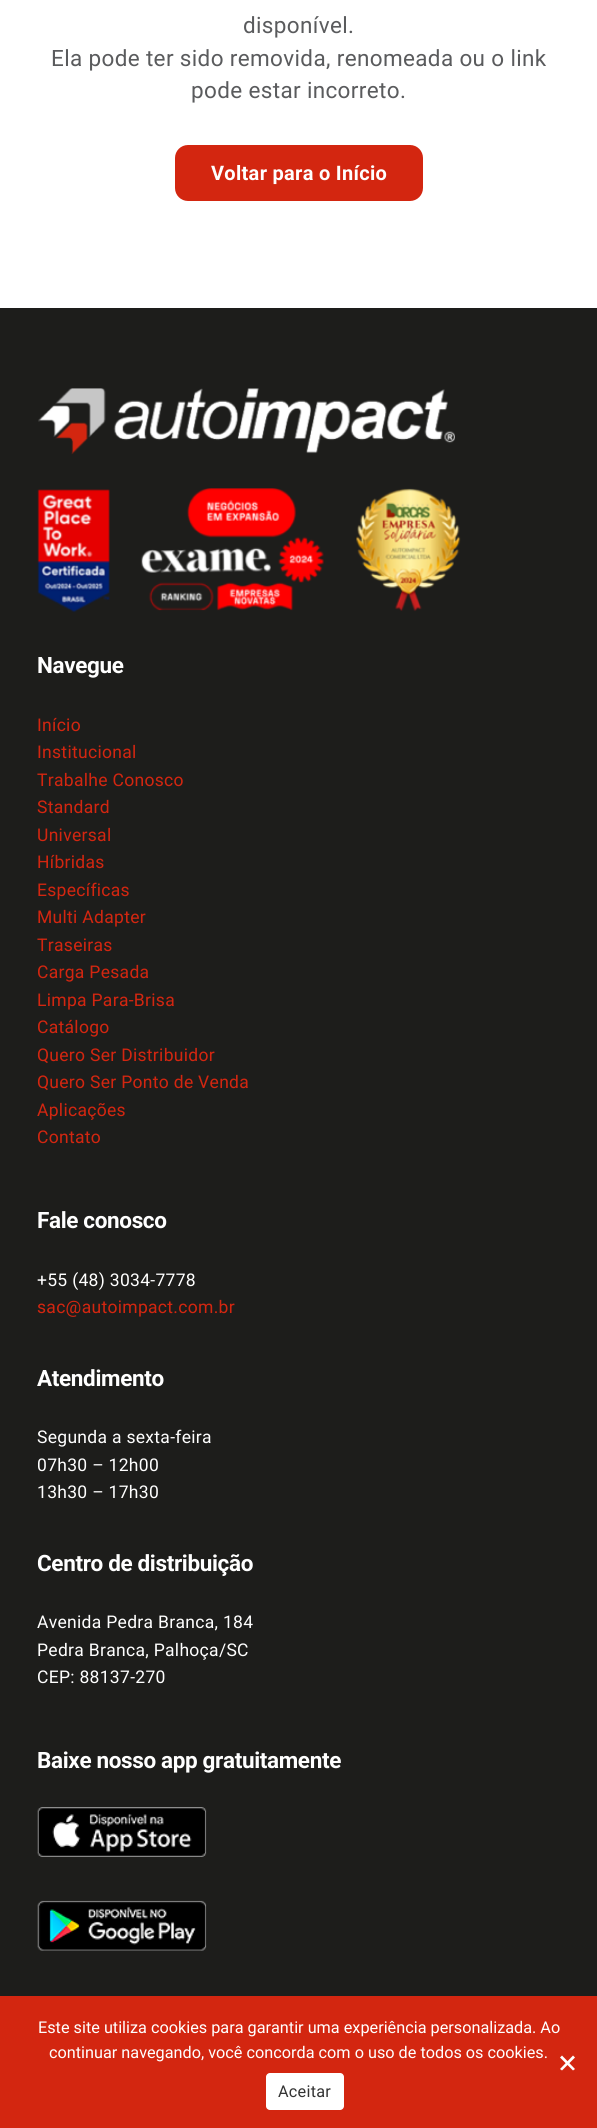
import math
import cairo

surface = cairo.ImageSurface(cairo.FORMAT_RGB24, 597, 2128)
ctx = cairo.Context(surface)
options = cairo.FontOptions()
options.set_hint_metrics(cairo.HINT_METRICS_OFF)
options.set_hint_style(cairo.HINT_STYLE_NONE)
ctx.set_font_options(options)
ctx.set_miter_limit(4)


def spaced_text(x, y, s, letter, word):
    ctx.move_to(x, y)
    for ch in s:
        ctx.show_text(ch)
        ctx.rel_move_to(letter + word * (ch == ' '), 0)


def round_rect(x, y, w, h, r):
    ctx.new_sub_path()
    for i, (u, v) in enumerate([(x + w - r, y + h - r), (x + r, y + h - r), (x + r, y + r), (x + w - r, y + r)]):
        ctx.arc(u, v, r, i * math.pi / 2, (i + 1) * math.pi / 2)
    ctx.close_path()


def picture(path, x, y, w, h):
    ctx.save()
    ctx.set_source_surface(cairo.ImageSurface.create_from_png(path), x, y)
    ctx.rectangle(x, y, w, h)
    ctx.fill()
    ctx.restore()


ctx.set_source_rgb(1, 1, 1)
ctx.paint()
ctx.select_font_face("Roboto")
ctx.set_font_size(22.5)
ctx.set_source_rgb(0.353, 0.357, 0.365)
spaced_text(243, 33, "disponível.", 0.35, 0)
spaced_text(51, 66, "Ela pode ter sido removida, renomeada ou o link", 0.35, 0)
spaced_text(191, 98, "pode estar incorreto.", 0.35, 0)
ctx.set_source_rgb(0.827, 0.149, 0.063)
round_rect(175, 145, 248, 56, 13)
ctx.fill()
ctx.select_font_face("Roboto", cairo.FONT_SLANT_NORMAL, cairo.FONT_WEIGHT_BOLD)
ctx.set_font_size(20)
ctx.set_source_rgb(1, 1, 1)
spaced_text(211, 180, "Voltar para o Início", 0.3, 0)
ctx.set_source_rgb(0.114, 0.114, 0.106)
ctx.rectangle(0, 308, 597, 1688)
ctx.fill()
picture("img1.png", 38, 388, 417, 67)
picture("img2.png", 37, 488, 424, 125)
ctx.set_font_size(22.5)
ctx.set_source_rgb(1, 1, 1)
spaced_text(37, 673, "Navegue", -0.35, 0)
ctx.select_font_face("Roboto")
ctx.set_font_size(17.5)
ctx.set_source_rgb(0.827, 0.149, 0.063)
spaced_text(37, 731, "Início", 0.3, 0)
spaced_text(37, 758, "Institucional", 0.3, 0)
spaced_text(37, 786, "Trabalhe Conosco", 0.3, 0)
spaced_text(37, 813, "Standard", 0.3, 0)
spaced_text(37, 841, "Universal", 0.3, 0)
spaced_text(37, 868, "Híbridas", 0.3, 0)
spaced_text(37, 896, "Específicas", 0.3, 0)
spaced_text(37, 923, "Multi Adapter", 0.3, 0)
spaced_text(37, 951, "Traseiras", 0.3, 0)
spaced_text(37, 978, "Carga Pesada", 0.3, 0)
spaced_text(37, 1006, "Limpa Para-Brisa", 0.3, 0)
spaced_text(37, 1033, "Catálogo", 0.3, 0)
spaced_text(37, 1061, "Quero Ser Distribuidor", 0.3, 0)
spaced_text(37, 1088, "Quero Ser Ponto de Venda", 0.3, 0)
spaced_text(37, 1116, "Aplicações", 0.3, 0)
spaced_text(37, 1143, "Contato", 0.3, 0)
ctx.select_font_face("Roboto", cairo.FONT_SLANT_NORMAL, cairo.FONT_WEIGHT_BOLD)
ctx.set_font_size(22.5)
ctx.set_source_rgb(1, 1, 1)
spaced_text(37, 1228, "Fale conosco", -0.35, 0)
ctx.select_font_face("Roboto")
ctx.set_font_size(17.5)
spaced_text(37, 1286, "+55 (48) 3034-7778", 0.3, 0)
ctx.set_source_rgb(0.827, 0.149, 0.063)
spaced_text(37, 1313, "sac@autoimpact.com.br", 0.3, 0)
ctx.select_font_face("Roboto", cairo.FONT_SLANT_NORMAL, cairo.FONT_WEIGHT_BOLD)
ctx.set_font_size(22.5)
ctx.set_source_rgb(1, 1, 1)
spaced_text(37, 1386, "Atendimento", -0.35, 0)
ctx.select_font_face("Roboto")
ctx.set_font_size(17.5)
spaced_text(37, 1443, "Segunda a sexta-feira", 0.3, 0)
spaced_text(37, 1471, "07h30 – 12h00", 0.3, 0)
spaced_text(37, 1498, "13h30 – 17h30", 0.3, 0)
ctx.select_font_face("Roboto", cairo.FONT_SLANT_NORMAL, cairo.FONT_WEIGHT_BOLD)
ctx.set_font_size(22.5)
spaced_text(37, 1571, "Centro de distribuição", -0.35, 0)
ctx.select_font_face("Roboto")
ctx.set_font_size(17.5)
spaced_text(37, 1628, "Avenida Pedra Branca, 184", 0.3, 0)
spaced_text(37, 1656, "Pedra Branca, Palhoça/SC", 0.3, 0)
spaced_text(37, 1683, "CEP: 88137-270", 0.3, 0)
ctx.select_font_face("Roboto", cairo.FONT_SLANT_NORMAL, cairo.FONT_WEIGHT_BOLD)
ctx.set_font_size(22.5)
spaced_text(37, 1768, "Baixe nosso app gratuitamente", -0.35, 0)
picture("img3.png", 37, 1807, 170, 50)
picture("img4.png", 37, 1900, 170, 51)
ctx.set_source_rgb(0.827, 0.149, 0.063)
ctx.rectangle(0, 1996, 597, 132)
ctx.fill()
ctx.select_font_face("Roboto")
ctx.set_font_size(16.25)
ctx.set_source_rgb(1, 1, 1)
ctx.move_to(38, 2033)
ctx.show_text("Este site utiliza cookies para garantir uma experiência personalizada. Ao")
ctx.move_to(49, 2058)
ctx.show_text("continuar navegando, você concorda com o uso de todos os cookies.")
ctx.new_path()
ctx.move_to(573, 2055.5)
ctx.line_to(575, 2057.5)
ctx.line_to(562, 2070.5)
ctx.line_to(560, 2069)
ctx.close_path()
ctx.fill()
ctx.new_path()
ctx.move_to(560, 2057.5)
ctx.line_to(562, 2055.5)
ctx.line_to(575, 2069)
ctx.line_to(573, 2070.5)
ctx.close_path()
ctx.fill()
round_rect(266, 2073, 78, 37, 4)
ctx.fill()
ctx.set_source_rgb(0.2, 0.2, 0.2)
spaced_text(278, 2097, "Aceitar", 0.25, 0)
surface.write_to_png("page.png")
